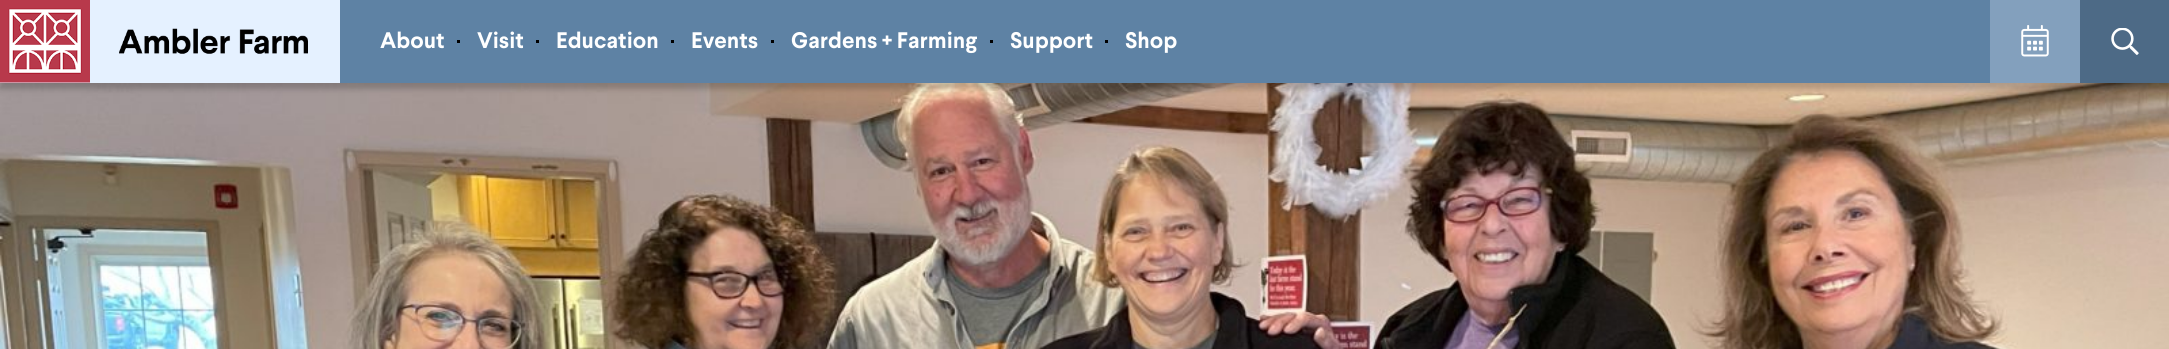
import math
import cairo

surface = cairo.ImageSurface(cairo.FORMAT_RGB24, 2169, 349)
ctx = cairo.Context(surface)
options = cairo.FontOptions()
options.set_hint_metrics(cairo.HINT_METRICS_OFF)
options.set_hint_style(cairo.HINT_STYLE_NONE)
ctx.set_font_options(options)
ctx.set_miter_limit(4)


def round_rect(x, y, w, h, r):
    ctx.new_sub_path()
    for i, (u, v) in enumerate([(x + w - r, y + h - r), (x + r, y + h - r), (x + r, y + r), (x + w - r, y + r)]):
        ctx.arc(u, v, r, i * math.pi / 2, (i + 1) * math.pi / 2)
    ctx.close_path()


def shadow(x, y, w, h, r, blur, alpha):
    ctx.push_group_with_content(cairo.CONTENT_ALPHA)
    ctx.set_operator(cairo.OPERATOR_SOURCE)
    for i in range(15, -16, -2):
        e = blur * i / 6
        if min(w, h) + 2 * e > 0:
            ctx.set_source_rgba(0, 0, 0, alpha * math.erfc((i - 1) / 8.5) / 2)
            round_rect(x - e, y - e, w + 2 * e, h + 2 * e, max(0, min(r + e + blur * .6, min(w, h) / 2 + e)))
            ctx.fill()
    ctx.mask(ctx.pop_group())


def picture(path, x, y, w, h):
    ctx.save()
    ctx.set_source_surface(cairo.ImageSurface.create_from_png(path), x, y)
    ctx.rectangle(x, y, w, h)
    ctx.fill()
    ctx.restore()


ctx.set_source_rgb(1, 1, 1)
ctx.paint()
picture("img5.png", 0, 83, 2169, 266)
ctx.set_source_rgb(0, 0, 0)
shadow(0, 6, 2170, 83, 0, 3, 0.2)
ctx.set_source_rgb(0.369, 0.51, 0.643)
ctx.rectangle(340, 0, 1650, 83)
ctx.fill()
ctx.set_source_rgb(0.898, 0.945, 1)
ctx.rectangle(0, 0, 340, 83)
ctx.fill()
picture("img1.png", 0, 0, 90, 83)
picture("img2.png", 119, 28, 189, 26)
ctx.set_source_rgb(0, 0, 0)
ctx.rectangle(457, 40, 3, 3)
ctx.fill()
ctx.select_font_face("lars")
ctx.set_font_size(22.5)
ctx.set_source_rgb(1, 1, 1)
ctx.move_to(380, 48)
ctx.show_text("About")
ctx.set_source_rgb(0, 0, 0)
ctx.rectangle(536, 40, 3, 3)
ctx.fill()
ctx.set_source_rgb(1, 1, 1)
ctx.move_to(477, 48)
ctx.show_text("Visit")
ctx.set_source_rgb(0, 0, 0)
ctx.rectangle(671, 40, 3, 3)
ctx.fill()
ctx.set_source_rgb(1, 1, 1)
ctx.move_to(556, 48)
ctx.show_text("Education")
ctx.set_source_rgb(0, 0, 0)
ctx.rectangle(771, 40, 3, 3)
ctx.fill()
ctx.set_source_rgb(1, 1, 1)
ctx.move_to(691, 48)
ctx.show_text("Events")
ctx.set_source_rgb(0, 0, 0)
ctx.rectangle(990, 40, 3, 3)
ctx.fill()
ctx.set_source_rgb(1, 1, 1)
ctx.move_to(791, 48)
ctx.show_text("Gardens + Farming")
ctx.set_source_rgb(0, 0, 0)
ctx.rectangle(1105, 40, 3, 3)
ctx.fill()
ctx.set_source_rgb(1, 1, 1)
ctx.move_to(1010, 48)
ctx.show_text("Support")
ctx.move_to(1125, 48)
ctx.show_text("Shop")
ctx.set_source_rgb(0.514, 0.627, 0.741)
ctx.rectangle(1990, 0, 90, 83)
ctx.fill()
picture("img3.png", 2021, 25, 28, 32)
ctx.set_source_rgb(0.302, 0.416, 0.525)
ctx.rectangle(2080, 0, 89, 83)
ctx.fill()
picture("img4.png", 2111, 28, 28, 27)
surface.write_to_png("page.png")
